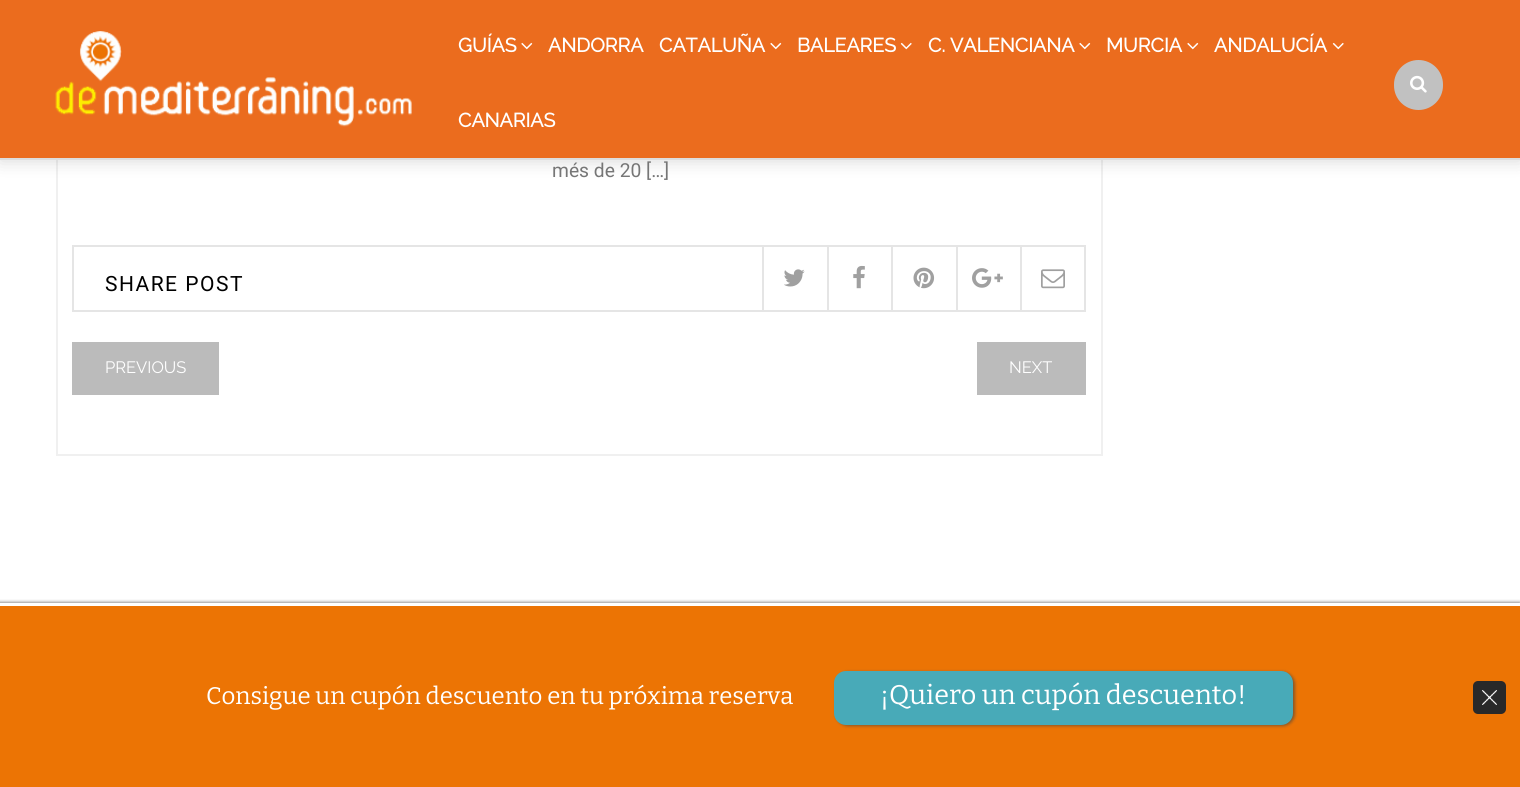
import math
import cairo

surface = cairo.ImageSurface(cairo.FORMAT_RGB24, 1520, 787)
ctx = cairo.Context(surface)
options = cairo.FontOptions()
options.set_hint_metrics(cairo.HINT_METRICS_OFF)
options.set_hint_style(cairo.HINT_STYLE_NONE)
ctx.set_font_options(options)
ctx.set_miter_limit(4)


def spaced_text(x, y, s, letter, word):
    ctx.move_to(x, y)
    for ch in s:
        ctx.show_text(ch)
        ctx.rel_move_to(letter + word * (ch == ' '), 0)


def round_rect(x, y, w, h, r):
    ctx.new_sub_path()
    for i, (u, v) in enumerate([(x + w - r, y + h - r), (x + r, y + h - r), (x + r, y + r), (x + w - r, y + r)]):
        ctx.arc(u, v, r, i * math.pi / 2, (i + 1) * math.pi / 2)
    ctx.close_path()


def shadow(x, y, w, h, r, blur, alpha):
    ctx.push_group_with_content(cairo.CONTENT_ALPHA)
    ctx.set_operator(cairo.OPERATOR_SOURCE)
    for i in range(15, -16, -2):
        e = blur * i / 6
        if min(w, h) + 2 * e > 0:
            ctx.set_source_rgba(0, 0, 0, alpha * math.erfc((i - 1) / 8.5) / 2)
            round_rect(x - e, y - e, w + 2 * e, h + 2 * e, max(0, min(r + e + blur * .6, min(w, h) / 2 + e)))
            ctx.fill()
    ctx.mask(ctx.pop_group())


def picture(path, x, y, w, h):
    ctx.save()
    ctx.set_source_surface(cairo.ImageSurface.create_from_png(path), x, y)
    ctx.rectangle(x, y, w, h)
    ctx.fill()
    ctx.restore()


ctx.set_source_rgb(1, 1, 1)
ctx.paint()
ctx.rectangle(57, -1, 1045, 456)
ctx.set_source_rgb(0.941, 0.941, 0.941)
ctx.stroke()
ctx.set_source_rgb(0, 0, 0)
shadow(0, 2, 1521, 159, 0, 9, 0.15)
ctx.set_source_rgb(0.918, 0.424, 0.118)
ctx.rectangle(0, 0, 1520, 158)
ctx.fill()
ctx.set_source_rgb(0.867, 0.867, 0.867)
ctx.rectangle(0, 158, 1520, 2)
ctx.fill()
picture("img1.png", 55, 31, 357, 96)
ctx.select_font_face("Raleway", cairo.FONT_SLANT_NORMAL, cairo.FONT_WEIGHT_BOLD)
ctx.set_font_size(19.5)
ctx.set_source_rgb(1, 1, 1)
ctx.move_to(458, 52)
ctx.show_text("GUÍAS")
picture("img2.png", 521, 42, 12, 8)
ctx.move_to(548, 52)
ctx.show_text("ANDORRA")
ctx.move_to(659, 52)
ctx.show_text("CATALUÑA")
picture("img2.png", 770, 42, 12, 8)
ctx.move_to(797, 52)
ctx.show_text("BALEARES")
picture("img3.png", 900, 42, 12, 8)
ctx.move_to(928, 52)
ctx.show_text("C. VALENCIANA")
picture("img2.png", 1079, 42, 12, 8)
ctx.move_to(1106, 52)
ctx.show_text("MURCIA")
picture("img2.png", 1187, 42, 12, 8)
ctx.move_to(1214, 52)
ctx.show_text("ANDALUCÍA")
picture("img3.png", 1332, 42, 12, 8)
ctx.move_to(458, 127)
ctx.show_text("CANARIAS")
ctx.set_source_rgb(0.757, 0.757, 0.757)
round_rect(1394, 60, 49, 50, 24.5)
ctx.fill()
picture("img4.png", 1410, 75, 17, 18)
ctx.select_font_face("Roboto")
ctx.set_font_size(19.25)
ctx.set_source_rgb(0.463, 0.463, 0.463)
ctx.move_to(552, 177)
ctx.show_text("més de 20 […]")
ctx.rectangle(73, 246, 1012, 65)
ctx.set_source_rgb(0.898, 0.898, 0.898)
ctx.stroke()
ctx.set_font_size(21)
ctx.set_source_rgb(0, 0, 0)
spaced_text(105, 291, "SHARE POST", 1.5, 0)
ctx.set_source_rgb(0.898, 0.898, 0.898)
ctx.rectangle(762, 246, 2, 65)
ctx.fill()
picture("img5.png", 784, 269, 21, 18)
ctx.rectangle(827, 246, 2, 65)
ctx.fill()
picture("img6.png", 853, 265, 12, 24)
ctx.rectangle(891, 246, 2, 65)
ctx.fill()
picture("img7.png", 913, 267, 22, 22)
ctx.rectangle(956, 246, 2, 65)
ctx.fill()
picture("img8.png", 972, 268, 31, 20)
ctx.rectangle(1020, 246, 2, 65)
ctx.fill()
picture("img9.png", 1041, 269, 24, 20)
ctx.set_source_rgb(0.733, 0.733, 0.733)
ctx.rectangle(72, 342, 147, 53)
ctx.fill()
ctx.select_font_face("Raleway Thin")
ctx.set_font_size(16.5)
ctx.set_source_rgb(1, 1, 1)
ctx.move_to(105, 373)
ctx.show_text("PREVIOUS")
ctx.set_source_rgb(0.733, 0.733, 0.733)
ctx.rectangle(977, 342, 109, 53)
ctx.fill()
ctx.set_source_rgb(1, 1, 1)
ctx.move_to(1009, 373)
ctx.show_text("NEXT")
ctx.save()
ctx.rectangle(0, 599, 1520, 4)
ctx.clip()
ctx.set_source_rgb(0.259, 0.259, 0.259)
shadow(-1, 602, 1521, 184, 0, 1.5, 0.6)
ctx.restore()
ctx.set_source_rgb(0.925, 0.455, 0.016)
ctx.rectangle(0, 606, 1520, 181)
ctx.fill()
ctx.select_font_face("Bitter Thin")
ctx.set_font_size(24)
ctx.set_source_rgb(1, 1, 1)
ctx.move_to(206, 704)
ctx.show_text("Consigue un cupón descuento en tu próxima reserva")
ctx.set_source_rgb(0.259, 0.259, 0.259)
shadow(836, 672, 459, 54, 12, 1.5, 0.6)
ctx.set_source_rgb(0.282, 0.667, 0.722)
round_rect(834, 671, 459, 54, 12)
ctx.fill()
ctx.set_font_size(27)
ctx.set_source_rgb(1, 1, 1)
ctx.move_to(880, 704)
ctx.show_text("¡Quiero un cupón descuento!")
ctx.set_source_rgb(0.161, 0.161, 0.161)
round_rect(1473, 681, 33, 33, 5)
ctx.fill()
picture("img10.png", 1482, 690, 15, 15)
surface.write_to_png("page.png")
